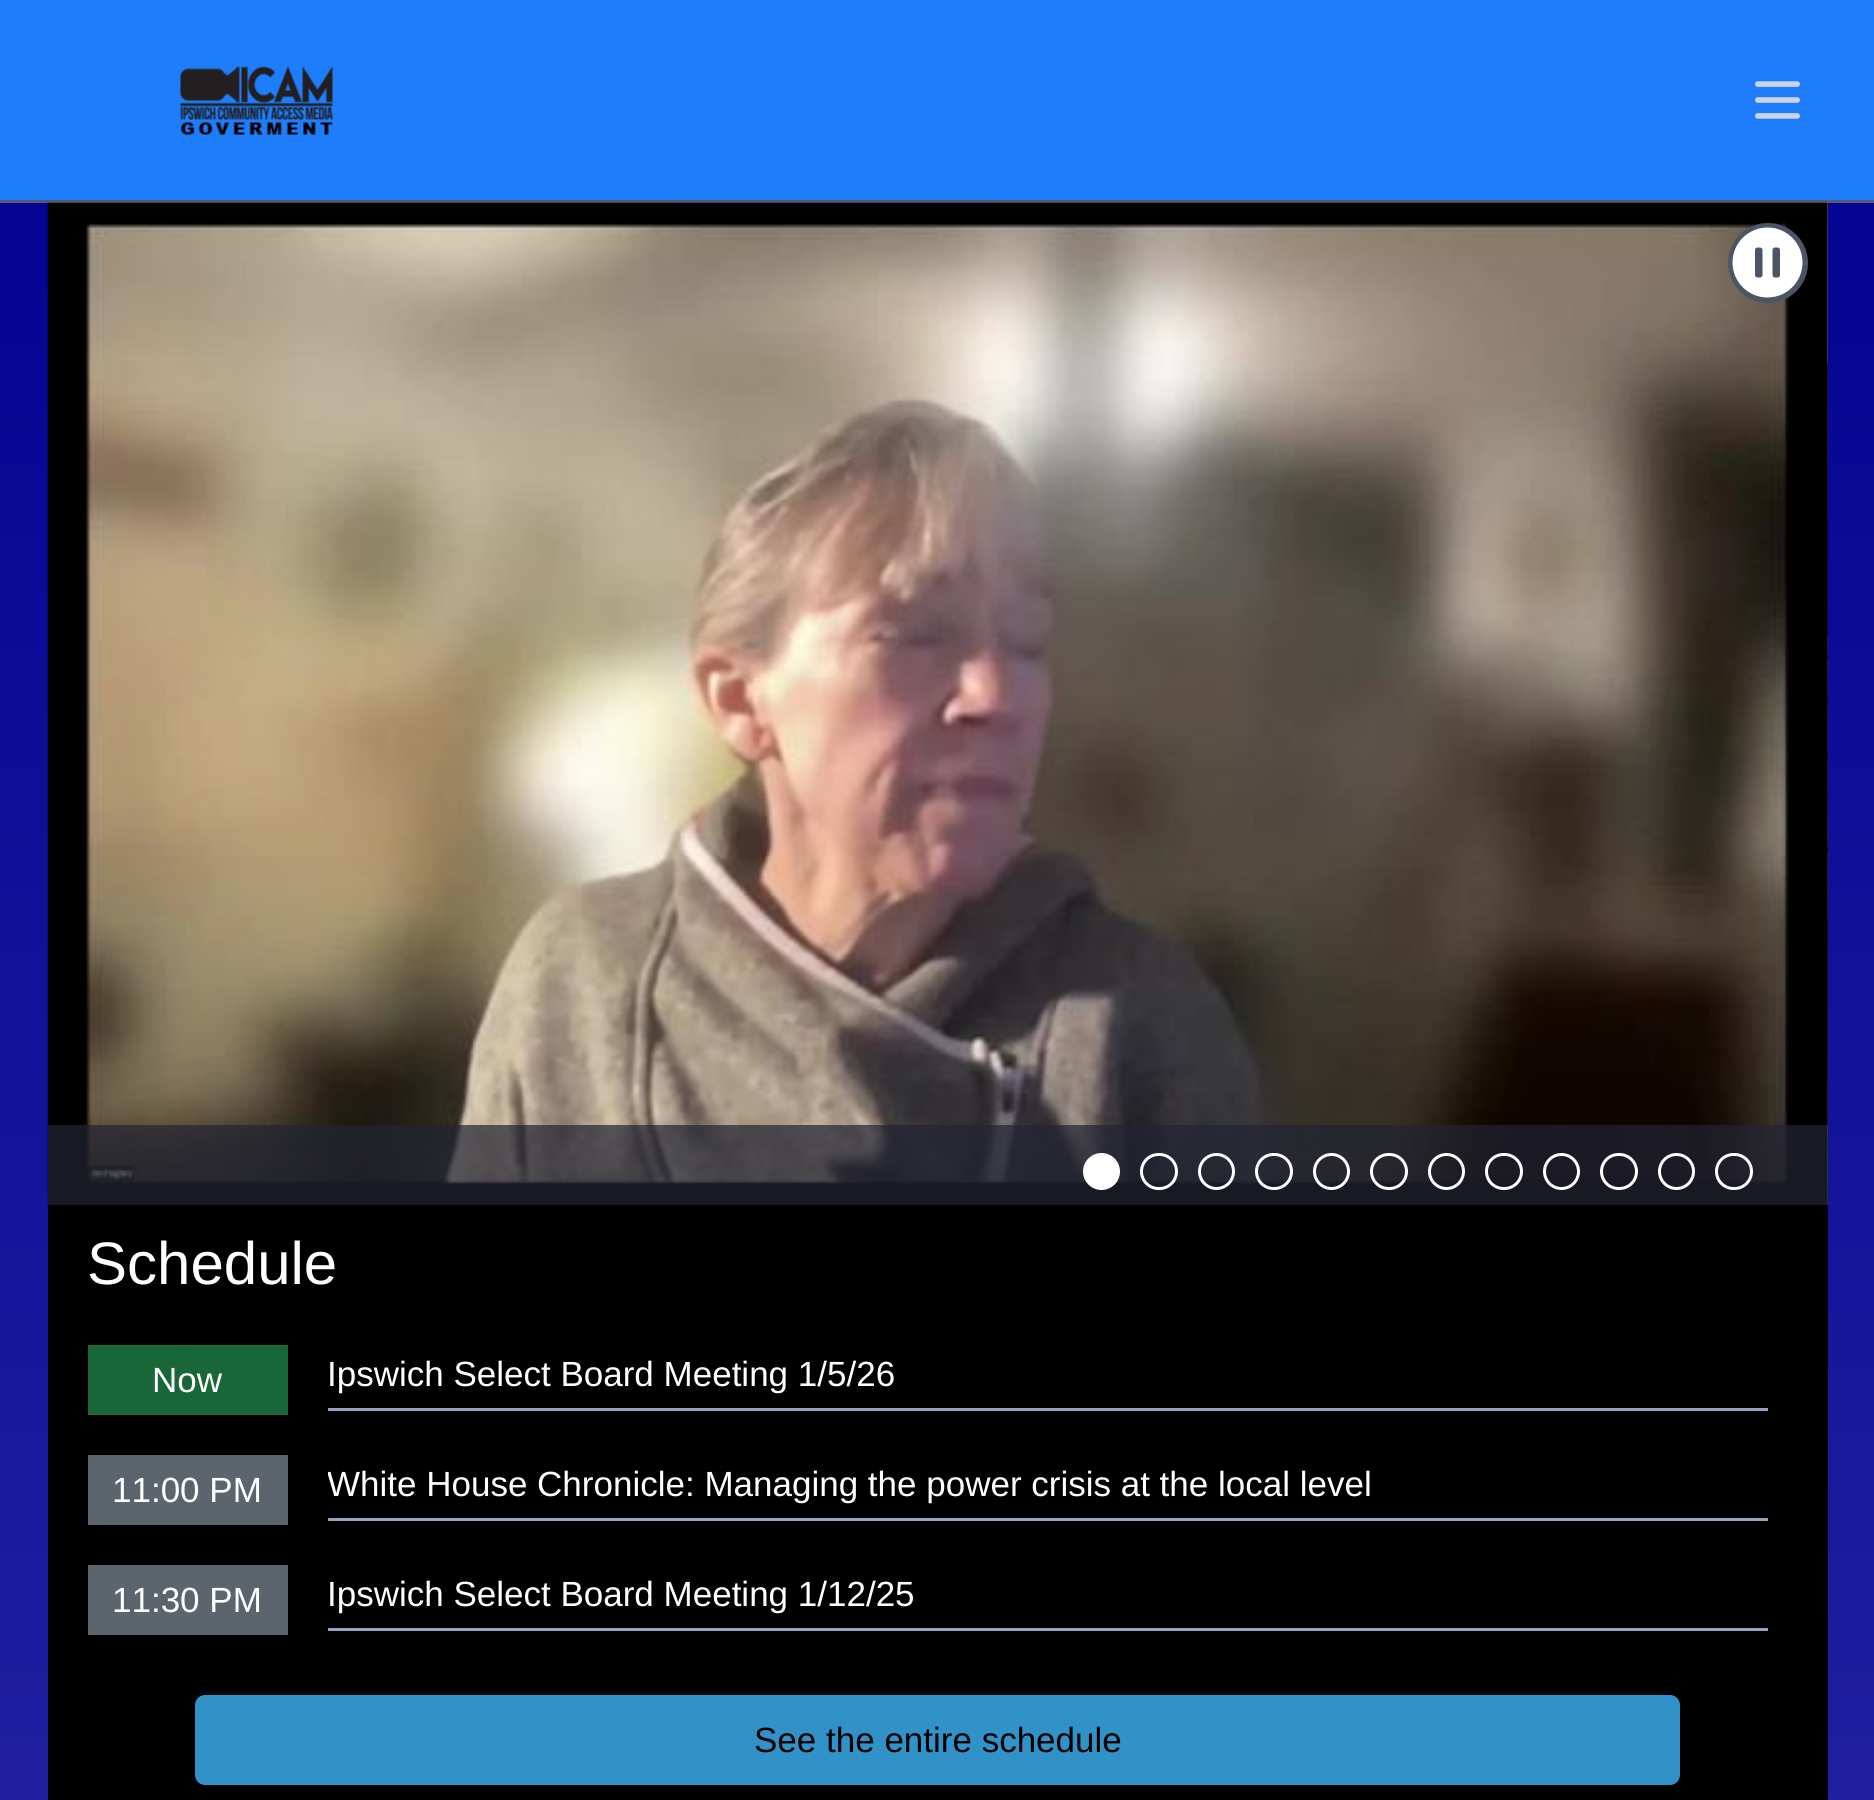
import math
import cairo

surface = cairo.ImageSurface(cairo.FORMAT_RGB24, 1874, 1800)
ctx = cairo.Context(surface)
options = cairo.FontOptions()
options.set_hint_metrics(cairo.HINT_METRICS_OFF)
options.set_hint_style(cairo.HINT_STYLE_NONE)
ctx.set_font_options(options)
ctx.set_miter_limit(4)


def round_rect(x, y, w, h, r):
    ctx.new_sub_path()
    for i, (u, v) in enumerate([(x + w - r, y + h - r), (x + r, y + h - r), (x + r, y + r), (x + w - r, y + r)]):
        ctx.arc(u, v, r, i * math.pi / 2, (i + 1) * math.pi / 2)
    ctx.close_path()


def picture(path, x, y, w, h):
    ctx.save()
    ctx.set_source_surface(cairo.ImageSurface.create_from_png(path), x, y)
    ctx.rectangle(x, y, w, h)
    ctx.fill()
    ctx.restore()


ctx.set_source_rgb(0.118, 0.49, 0.98)
ctx.paint()
ctx.set_source_rgb(0.329, 0.361, 0.431)
ctx.rectangle(0, 200, 1874, 3)
ctx.fill()
picture("img1.png", 180, 66, 153, 69)
picture("img2.png", 1755, 81, 45, 38)
gradient = cairo.LinearGradient(937, 203, 938, 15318)
gradient.add_color_stop_rgba(0, 0.016, 0.016, 0.58, 1)
gradient.add_color_stop_rgba(1, 1, 1, 1, 1)
ctx.set_source(gradient)
ctx.rectangle(0, 203, 1874, 1597)
ctx.fill()
ctx.set_source_rgb(0, 0, 0)
ctx.rectangle(48, 203, 1780, 1597)
ctx.fill()
picture("img3.png", 47, 202, 1781, 1003)
ctx.set_source_rgba(0.129, 0.145, 0.196, 0.7)
ctx.rectangle(48, 1125, 1780, 80)
ctx.fill()
picture("img4.png", 1827, 202, 1, 1003)
ctx.set_source_rgb(0.294, 0.333, 0.388)
ctx.arc(1768, 263, 40, 0, 2 * math.pi)
ctx.fill()
picture("img5.png", 1732, 227, 71, 71)
ctx.set_source_rgb(1, 1, 1)
ctx.arc(1101.5, 1171.5, 17, 0, 2 * math.pi)
ctx.fill_preserve()
ctx.set_line_width(3)
ctx.stroke()
round_rect(1141.5, 1154.5, 35, 34, 17)
ctx.stroke()
ctx.arc(1216.5, 1171.5, 17, 0, 2 * math.pi)
ctx.stroke()
round_rect(1256.5, 1154.5, 35, 34, 17)
ctx.stroke()
ctx.arc(1331.5, 1171.5, 17, 0, 2 * math.pi)
ctx.stroke()
round_rect(1371.5, 1154.5, 35, 34, 17)
ctx.stroke()
ctx.arc(1446.5, 1171.5, 17, 0, 2 * math.pi)
ctx.stroke()
round_rect(1486.5, 1154.5, 35, 34, 17)
ctx.stroke()
ctx.arc(1561.5, 1171.5, 17, 0, 2 * math.pi)
ctx.stroke()
round_rect(1601.5, 1154.5, 35, 34, 17)
ctx.stroke()
ctx.arc(1676.5, 1171.5, 17, 0, 2 * math.pi)
ctx.stroke()
round_rect(1716.5, 1154.5, 35, 34, 17)
ctx.stroke()
ctx.select_font_face("Liberation Sans")
ctx.set_font_size(60)
ctx.move_to(87, 1284)
ctx.show_text("Schedule")
ctx.set_source_rgb(0.098, 0.4, 0.224)
ctx.rectangle(88, 1345, 200, 70)
ctx.fill()
ctx.set_font_size(35)
ctx.set_source_rgb(1, 1, 1)
ctx.move_to(152, 1392)
ctx.show_text("Now")
ctx.move_to(327, 1386)
ctx.show_text("Ipswich Select Board Meeting 1/5/26")
ctx.set_source_rgb(0.58, 0.639, 0.745)
ctx.rectangle(328, 1408, 1440, 3)
ctx.fill()
ctx.set_source_rgb(0.361, 0.396, 0.427)
ctx.rectangle(88, 1455, 200, 70)
ctx.fill()
ctx.set_source_rgb(1, 1, 1)
ctx.move_to(112, 1502)
ctx.show_text("11:00 PM")
ctx.save()
ctx.rectangle(328, 1458, 1440, 50)
ctx.clip()
ctx.move_to(327, 1496)
ctx.show_text("White House Chronicle: Managing the power crisis at the local level")
ctx.restore()
ctx.set_source_rgb(0.58, 0.639, 0.745)
ctx.rectangle(328, 1518, 1440, 3)
ctx.fill()
ctx.set_source_rgb(0.361, 0.396, 0.427)
ctx.rectangle(88, 1565, 200, 70)
ctx.fill()
ctx.set_source_rgb(1, 1, 1)
ctx.move_to(112, 1612)
ctx.show_text("11:30 PM")
ctx.move_to(327, 1606)
ctx.show_text("Ipswich Select Board Meeting 1/12/25")
ctx.set_source_rgb(0.58, 0.639, 0.745)
ctx.rectangle(328, 1628, 1440, 3)
ctx.fill()
ctx.set_source_rgb(0.192, 0.573, 0.784)
round_rect(195, 1695, 1485, 90, 10)
ctx.fill()
ctx.set_source_rgb(0, 0, 0)
ctx.move_to(754, 1752)
ctx.show_text("See the entire schedule")
surface.write_to_png("page.png")
